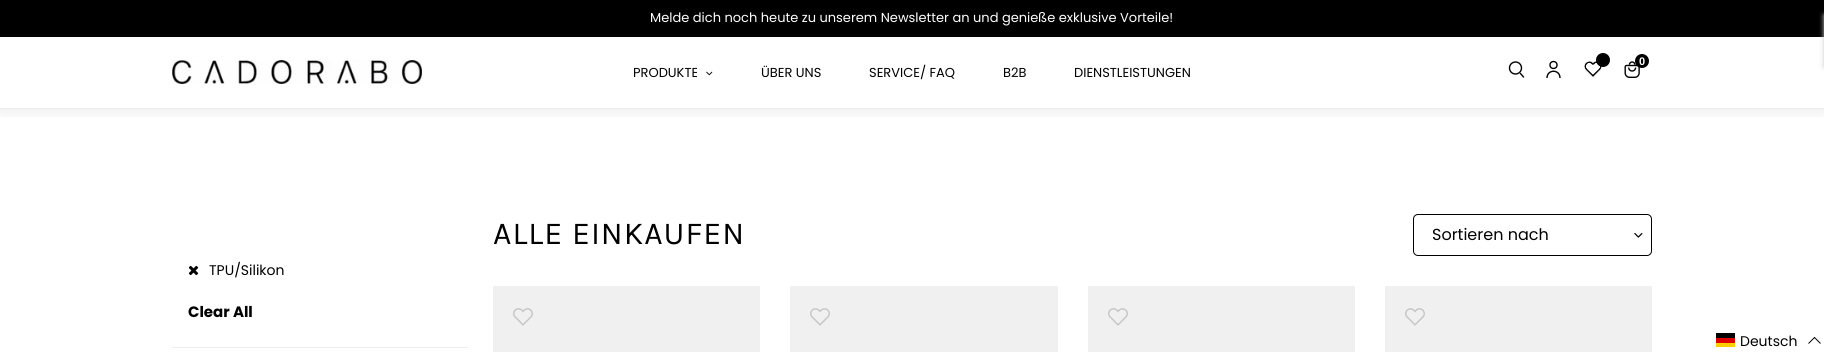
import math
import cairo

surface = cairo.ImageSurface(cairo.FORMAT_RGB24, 1824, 352)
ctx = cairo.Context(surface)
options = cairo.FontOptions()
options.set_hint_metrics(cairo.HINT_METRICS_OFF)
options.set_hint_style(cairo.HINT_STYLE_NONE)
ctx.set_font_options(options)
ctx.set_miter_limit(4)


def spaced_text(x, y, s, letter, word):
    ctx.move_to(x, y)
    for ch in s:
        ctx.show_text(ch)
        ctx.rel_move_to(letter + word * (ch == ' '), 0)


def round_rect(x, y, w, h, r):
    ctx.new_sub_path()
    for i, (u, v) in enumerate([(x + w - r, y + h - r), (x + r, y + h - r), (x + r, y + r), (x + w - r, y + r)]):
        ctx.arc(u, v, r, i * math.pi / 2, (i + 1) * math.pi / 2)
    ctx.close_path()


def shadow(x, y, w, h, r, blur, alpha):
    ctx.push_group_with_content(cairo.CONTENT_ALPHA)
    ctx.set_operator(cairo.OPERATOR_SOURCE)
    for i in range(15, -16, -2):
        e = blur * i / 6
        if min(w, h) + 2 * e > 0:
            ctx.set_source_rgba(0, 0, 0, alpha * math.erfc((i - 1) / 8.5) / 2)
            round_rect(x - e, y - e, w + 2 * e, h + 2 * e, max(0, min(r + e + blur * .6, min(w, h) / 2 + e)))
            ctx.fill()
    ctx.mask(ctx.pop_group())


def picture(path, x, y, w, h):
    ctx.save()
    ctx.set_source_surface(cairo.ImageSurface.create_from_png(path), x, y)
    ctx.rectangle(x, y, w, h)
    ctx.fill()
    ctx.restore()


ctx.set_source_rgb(1, 1, 1)
ctx.paint()
ctx.save()
ctx.rectangle(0, 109, 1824, 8)
ctx.clip()
ctx.set_source_rgb(0, 0, 0)
shadow(0, 37, 1824, 72, 0, 10, 0.1)
ctx.restore()
ctx.set_source_rgb(0, 0, 0)
ctx.rectangle(0, 0, 1824, 37)
ctx.fill()
ctx.select_font_face("Poppins")
ctx.set_font_size(13)
ctx.set_source_rgb(1, 1, 1)
ctx.move_to(650, 22)
ctx.show_text("Melde dich noch heute zu unserem Newsletter an und genieße exklusive Vorteile!")
ctx.set_source_rgb(0.922, 0.922, 0.922)
ctx.rectangle(0, 108, 1824, 1)
ctx.fill()
picture("img1.png", 172, 60, 250, 24)
ctx.set_source_rgb(0, 0, 0)
ctx.move_to(633, 77)
ctx.show_text("PRODUKTE")
picture("img2.png", 706, 71, 7, 5)
ctx.move_to(761, 77)
ctx.show_text("ÜBER UNS")
ctx.move_to(869, 77)
ctx.show_text("SERVICE/ FAQ")
ctx.move_to(1003, 77)
ctx.show_text("B2B")
ctx.move_to(1074, 77)
ctx.show_text("DIENSTLEISTUNGEN")
ctx.new_path()
ctx.arc(1515.5, 68, 6, 0, 2 * math.pi)
ctx.set_line_width(1.4)
ctx.stroke()
ctx.new_path()
ctx.move_to(1520.5, 73.5)
ctx.line_to(1523.5, 77)
ctx.set_line_cap(cairo.LINE_CAP_ROUND)
ctx.stroke()
ctx.arc(1553.5, 65, 3.5, 0, 2 * math.pi)
ctx.set_line_cap(cairo.LINE_CAP_BUTT)
ctx.stroke()
ctx.new_path()
ctx.move_to(1560, 78)
ctx.curve_to(1560, 69, 1547, 69, 1547, 78)
ctx.stroke()
picture("img3.png", 1584, 61, 18, 17)
ctx.arc(1603, 60, 7, 0, 2 * math.pi)
ctx.fill()
picture("img4.png", 1624, 61, 16, 17)
ctx.arc(1642, 61, 7, 0, 2 * math.pi)
ctx.fill()
ctx.select_font_face("Liberation Sans", cairo.FONT_SLANT_NORMAL, cairo.FONT_WEIGHT_BOLD)
ctx.set_font_size(11)
ctx.set_source_rgb(1, 1, 1)
ctx.move_to(1639, 65)
ctx.show_text("0")
ctx.set_source_rgb(0.8, 0.8, 0.8)
shadow(1824, 15, 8, 52, 0, 2.5, 1)
ctx.select_font_face("Karla")
ctx.set_font_size(32)
ctx.set_source_rgb(0, 0, 0)
spaced_text(493, 244, "ALLE EINKAUFEN", 1, 0)
round_rect(1413.5, 214.5, 238, 41, 4.5)
ctx.set_line_width(1)
ctx.stroke()
ctx.select_font_face("Poppins")
ctx.set_font_size(16)
ctx.move_to(1432, 240)
ctx.show_text("Sortieren nach")
picture("img5.png", 1634, 233, 9, 5)
ctx.set_source_rgb(0.941, 0.941, 0.941)
ctx.rectangle(493, 286, 267, 66)
ctx.fill()
picture("img6.png", 513, 308, 20, 18)
ctx.rectangle(790, 286, 268, 66)
ctx.fill()
picture("img6.png", 810, 308, 20, 18)
ctx.rectangle(1088, 286, 267, 66)
ctx.fill()
picture("img6.png", 1108, 308, 20, 18)
ctx.rectangle(1385, 286, 267, 66)
ctx.fill()
picture("img6.png", 1405, 308, 20, 18)
ctx.set_source_rgb(0.933, 0.933, 0.933)
ctx.rectangle(172, 347, 296, 1)
ctx.fill()
picture("img7.png", 188, 265, 11, 11)
ctx.set_font_size(14)
ctx.set_source_rgb(0, 0, 0)
ctx.move_to(209, 275)
ctx.show_text("TPU/Silikon")
ctx.select_font_face("Poppins", cairo.FONT_SLANT_NORMAL, cairo.FONT_WEIGHT_BOLD)
ctx.set_font_size(15)
ctx.move_to(188, 317)
ctx.show_text("Clear All")
ctx.set_source_rgb(1, 0.808, 0)
ctx.rectangle(1716, 343, 19, 4)
ctx.fill()
ctx.set_source_rgb(0, 0, 0)
ctx.rectangle(1716, 333, 19, 5)
ctx.fill()
ctx.set_source_rgb(0.867, 0, 0)
ctx.rectangle(1716, 338, 19, 5)
ctx.fill()
ctx.select_font_face("Poppins")
ctx.set_font_size(14)
ctx.set_source_rgb(0, 0, 0)
ctx.move_to(1740, 346)
ctx.show_text("Deutsch")
ctx.new_path()
ctx.move_to(1820.5, 343.5)
ctx.line_to(1814.5, 337.5)
ctx.line_to(1808.5, 343.5)
ctx.stroke()
surface.write_to_png("page.png")
